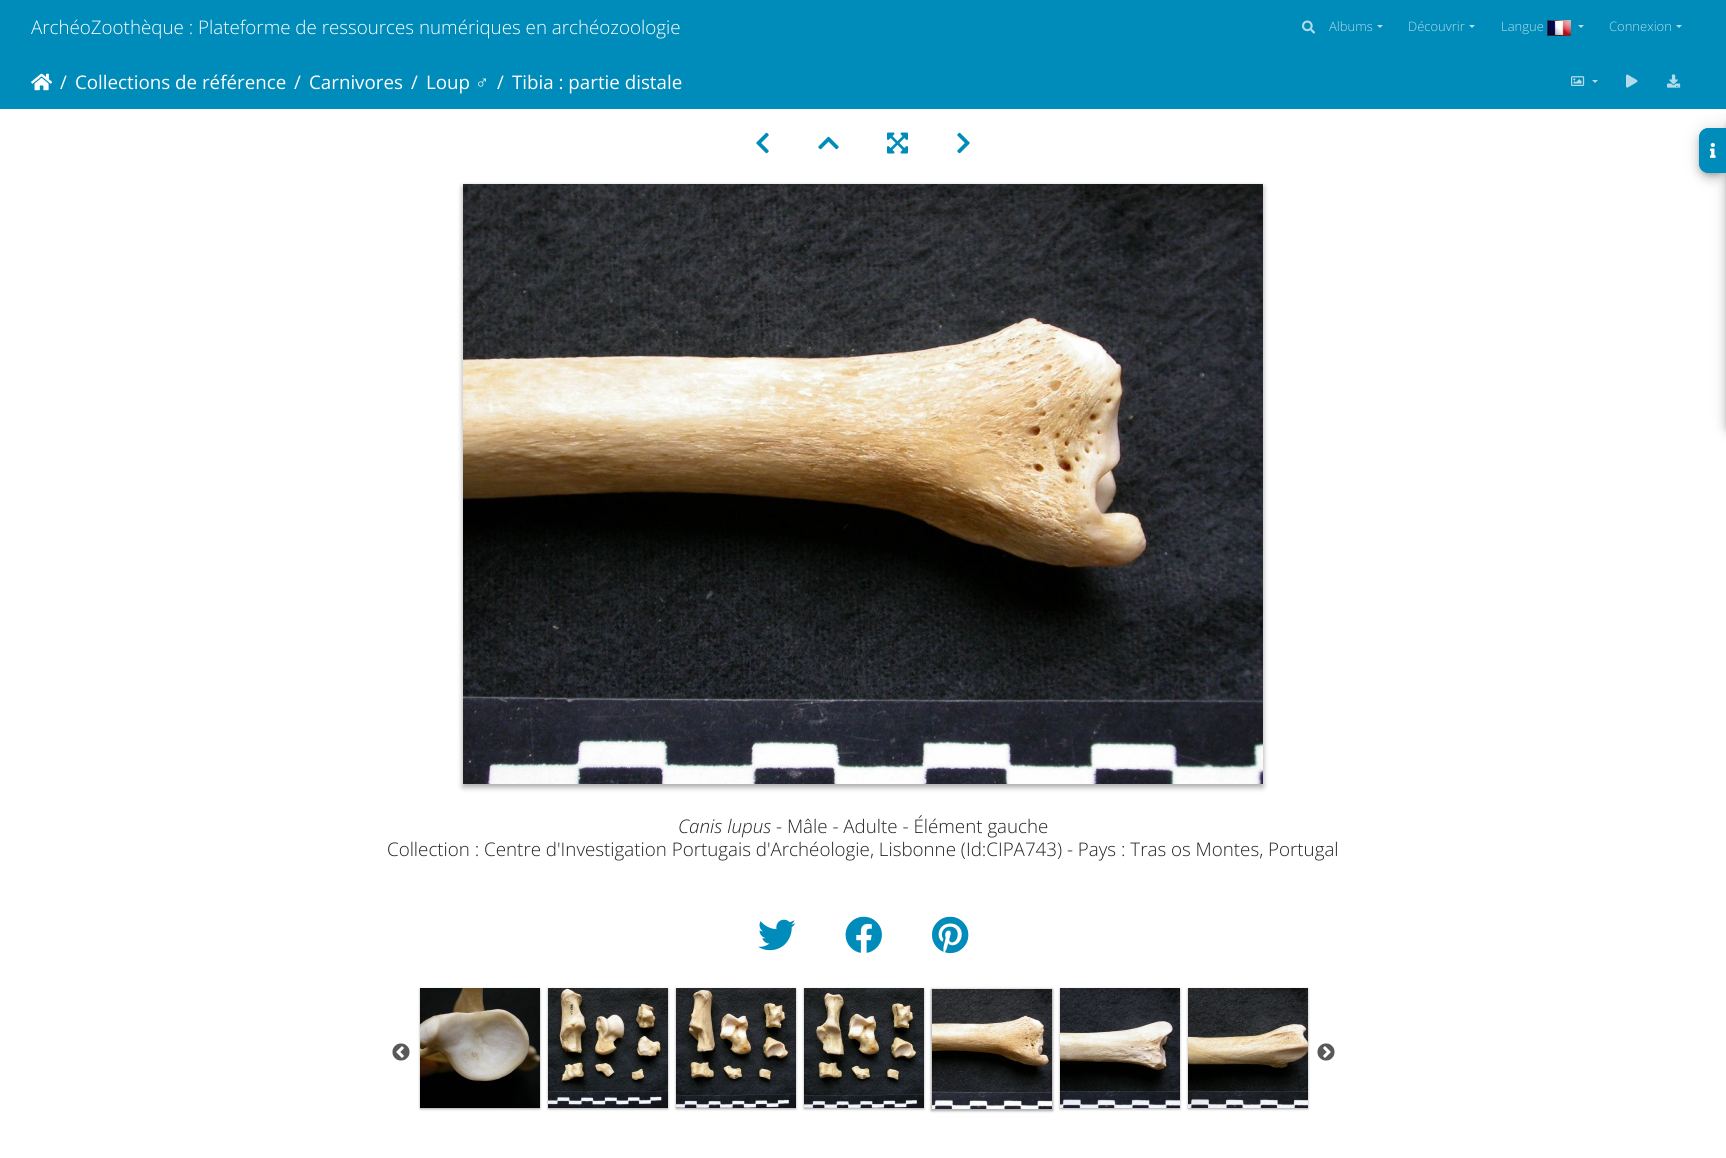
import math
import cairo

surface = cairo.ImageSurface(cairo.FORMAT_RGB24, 1726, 1158)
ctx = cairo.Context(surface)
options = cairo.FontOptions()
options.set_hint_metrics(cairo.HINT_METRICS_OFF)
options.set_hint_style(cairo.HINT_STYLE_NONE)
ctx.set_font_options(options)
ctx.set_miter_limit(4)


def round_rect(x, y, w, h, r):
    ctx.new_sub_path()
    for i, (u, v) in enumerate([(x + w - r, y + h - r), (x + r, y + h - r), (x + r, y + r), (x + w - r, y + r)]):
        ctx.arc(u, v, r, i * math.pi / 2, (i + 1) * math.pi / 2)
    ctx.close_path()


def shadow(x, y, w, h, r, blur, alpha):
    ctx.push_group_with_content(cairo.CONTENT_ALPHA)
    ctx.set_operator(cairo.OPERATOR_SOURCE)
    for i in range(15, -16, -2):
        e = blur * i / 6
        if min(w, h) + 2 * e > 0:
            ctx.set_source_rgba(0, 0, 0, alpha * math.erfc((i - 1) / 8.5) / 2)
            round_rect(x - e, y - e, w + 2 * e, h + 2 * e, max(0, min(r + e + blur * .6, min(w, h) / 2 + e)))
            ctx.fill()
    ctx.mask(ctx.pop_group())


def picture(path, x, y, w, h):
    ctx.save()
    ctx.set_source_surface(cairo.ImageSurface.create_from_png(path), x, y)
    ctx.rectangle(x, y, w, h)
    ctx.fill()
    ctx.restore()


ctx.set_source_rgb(1, 1, 1)
ctx.paint()
ctx.set_source_rgb(0, 0, 0)
shadow(1726, 119, 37, 312, 10, 9, 0.12)
shadow(1726, 124, 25, 312, 10, 5, 0.14)
shadow(1699, 129, 27, 45, 10, 9, 0.12)
ctx.set_source_rgb(0, 0.549, 0.729)
ctx.rectangle(0, 0, 1726, 109)
ctx.fill()
ctx.select_font_face("Open Sans Light")
ctx.set_font_size(18.75)
ctx.set_source_rgb(1, 1, 1)
ctx.move_to(31, 34)
ctx.show_text("ArchéoZoothèque : Plateforme de ressources numériques en archéozoologie")
picture("img1.png", 1302, 20, 14, 14)
ctx.set_font_size(13)
ctx.set_source_rgb(0.702, 0.867, 0.918)
ctx.move_to(1329, 31)
ctx.show_text("Albums")
ctx.new_path()
ctx.move_to(1377, 25)
ctx.line_to(1383, 25)
ctx.line_to(1380, 28)
ctx.close_path()
ctx.fill()
ctx.move_to(1408, 31)
ctx.show_text("Découvrir")
ctx.new_path()
ctx.move_to(1469, 25)
ctx.line_to(1475, 25)
ctx.line_to(1472, 28)
ctx.close_path()
ctx.fill()
ctx.move_to(1501, 31)
ctx.show_text("Langue")
picture("img2.png", 1547, 20, 24, 16)
ctx.new_path()
ctx.move_to(1578, 25)
ctx.line_to(1584, 25)
ctx.line_to(1581, 28)
ctx.close_path()
ctx.fill()
ctx.move_to(1609, 31)
ctx.show_text("Connexion")
ctx.new_path()
ctx.move_to(1676, 25)
ctx.line_to(1682, 25)
ctx.line_to(1679, 28)
ctx.close_path()
ctx.fill()
picture("img3.png", 31, 73, 21, 18)
ctx.select_font_face("Open Sans")
ctx.set_font_size(18.75)
ctx.set_source_rgb(1, 1, 1)
ctx.move_to(60, 89)
ctx.show_text("/")
ctx.move_to(75, 89)
ctx.show_text("Collections de référence")
ctx.move_to(294, 89)
ctx.show_text("/")
ctx.move_to(309, 89)
ctx.show_text("Carnivores")
ctx.move_to(411, 89)
ctx.show_text("/")
ctx.move_to(426, 89)
ctx.show_text("Loup")
ctx.select_font_face("Liberation Sans")
ctx.move_to(475, 89)
ctx.show_text("♂")
ctx.select_font_face("Open Sans")
ctx.move_to(497, 89)
ctx.show_text("/")
ctx.move_to(512, 89)
ctx.show_text("Tibia : partie distale")
picture("img4.png", 1571, 76, 14, 10)
ctx.set_source_rgb(0.702, 0.867, 0.918)
ctx.new_path()
ctx.move_to(1592, 80)
ctx.line_to(1598, 80)
ctx.line_to(1595, 83)
ctx.close_path()
ctx.fill()
picture("img5.png", 1626, 74, 12, 14)
picture("img6.png", 1667, 74, 14, 14)
picture("img7.png", 756, 132, 13, 22)
picture("img8.png", 818, 136, 21, 14)
picture("img9.png", 887, 132, 21, 22)
picture("img10.png", 957, 132, 13, 22)
ctx.set_source_rgb(0, 0, 0)
shadow(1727, 122, 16, 310, 9, 2.5, 0.2)
shadow(1700, 132, 25, 43, 9, 2.5, 0.2)
shadow(1699, 134, 27, 45, 10, 5, 0.14)
ctx.set_source_rgb(0, 0.549, 0.729)
ctx.new_path()
ctx.move_to(1709, 128)
ctx.line_to(1726, 128)
ctx.line_to(1726, 173)
ctx.line_to(1709, 173)
ctx.curve_to(1703.5, 173, 1699, 168.5, 1699, 163)
ctx.line_to(1699, 138)
ctx.curve_to(1699, 132.5, 1703.5, 128, 1709, 128)
ctx.close_path()
ctx.fill()
ctx.set_fill_rule(cairo.FILL_RULE_EVEN_ODD)
ctx.new_path()
ctx.move_to(1709, 128)
ctx.line_to(1726, 128)
ctx.line_to(1726, 173)
ctx.line_to(1709, 173)
ctx.curve_to(1703, 173, 1699, 169, 1699, 163)
ctx.line_to(1699, 138)
ctx.curve_to(1699, 132, 1703, 128, 1709, 128)
ctx.close_path()
ctx.move_to(1709, 129)
ctx.line_to(1726, 129)
ctx.line_to(1726, 172)
ctx.line_to(1709, 172)
ctx.curve_to(1704, 172, 1700, 168, 1700, 163)
ctx.line_to(1700, 138)
ctx.curve_to(1700, 133, 1704, 129, 1709, 129)
ctx.close_path()
ctx.fill()
picture("img11.png", 1710, 142, 6, 16)
ctx.set_source_rgb(0, 0, 0)
shadow(463, 187, 800, 600, 0, 3, 0.23)
shadow(463, 187, 800, 600, 0, 3, 0.16)
picture("img12.png", 463, 184, 800, 600)
ctx.select_font_face("Open Sans Light", cairo.FONT_SLANT_ITALIC)
ctx.set_source_rgb(0.133, 0.133, 0.133)
ctx.move_to(678, 833)
ctx.show_text("Canis lupus")
ctx.select_font_face("Open Sans Light")
ctx.move_to(776, 833)
ctx.show_text("- Mâle - Adulte - Élément gauche")
ctx.move_to(387, 856)
ctx.show_text("Collection : Centre d'Investigation Portugais d'Archéologie, Lisbonne (Id:CIPA743) - Pays : Tras os Montes, Portugal")
picture("img13.png", 758, 919, 38, 32)
picture("img14.png", 845, 916, 37, 37)
picture("img15.png", 932, 916, 37, 38)
picture("img16.png", 392, 1043, 18, 18)
ctx.set_source_rgb(0, 0, 0)
shadow(420, 989, 120, 120, 0, 1.5, 0.12)
shadow(420, 989, 120, 120, 0, 1, 0.24)
picture("img17.png", 420, 988, 120, 120)
shadow(548, 989, 120, 120, 0, 1.5, 0.12)
shadow(548, 989, 120, 120, 0, 1, 0.24)
picture("img18.png", 548, 988, 120, 120)
shadow(676, 989, 120, 120, 0, 1.5, 0.12)
shadow(676, 989, 120, 120, 0, 1, 0.24)
picture("img19.png", 676, 988, 120, 120)
shadow(804, 989, 120, 120, 0, 1.5, 0.12)
shadow(804, 989, 120, 120, 0, 1, 0.24)
picture("img20.png", 804, 988, 120, 120)
shadow(931, 989, 122, 122, 0, 1.5, 0.12)
shadow(931, 989, 122, 122, 0, 1, 0.24)
picture("img21.png", 932, 989, 120, 120)
shadow(1060, 989, 120, 120, 0, 1.5, 0.12)
shadow(1060, 989, 120, 120, 0, 1, 0.24)
picture("img22.png", 1060, 988, 120, 120)
shadow(1188, 989, 120, 120, 0, 1.5, 0.12)
shadow(1188, 989, 120, 120, 0, 1, 0.24)
picture("img23.png", 1188, 988, 120, 120)
picture("img24.png", 1317, 1043, 18, 18)
surface.write_to_png("page.png")
